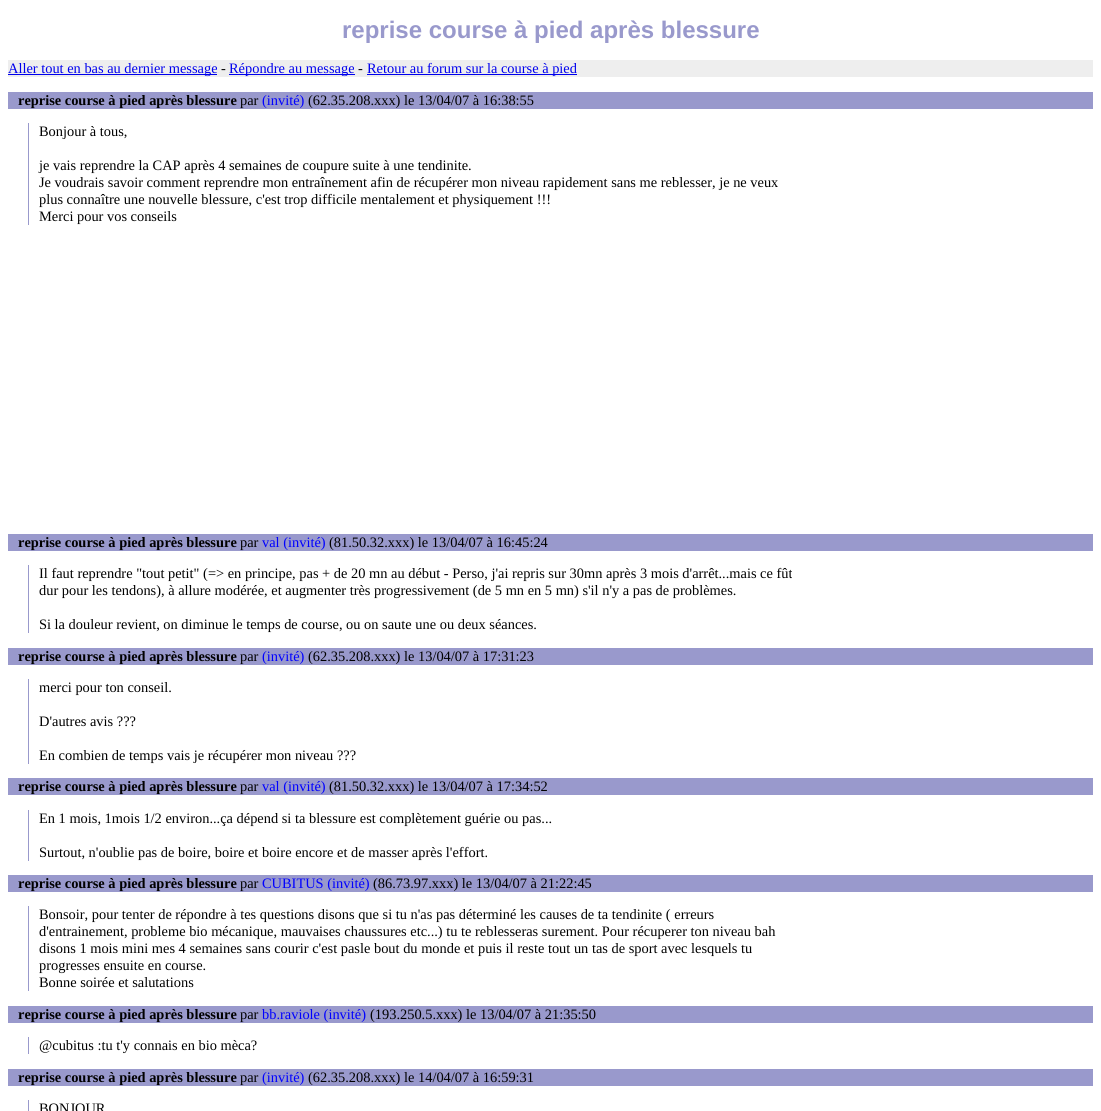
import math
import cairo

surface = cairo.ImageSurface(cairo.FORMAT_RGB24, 1101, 1111)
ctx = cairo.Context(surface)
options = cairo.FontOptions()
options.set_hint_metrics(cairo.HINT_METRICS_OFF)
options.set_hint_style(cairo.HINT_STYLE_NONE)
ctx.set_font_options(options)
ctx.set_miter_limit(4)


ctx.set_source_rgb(1, 1, 1)
ctx.paint()
ctx.select_font_face("Liberation Sans", cairo.FONT_SLANT_NORMAL, cairo.FONT_WEIGHT_BOLD)
ctx.set_font_size(24)
ctx.set_source_rgb(0.6, 0.6, 0.8)
ctx.move_to(342, 38)
ctx.show_text("reprise course à pied après blessure")
ctx.set_source_rgb(0.933, 0.933, 0.933)
ctx.rectangle(8, 60, 1085, 17)
ctx.fill()
ctx.set_source_rgb(0, 0, 0.933)
ctx.rectangle(8, 74, 209, 1)
ctx.fill()
ctx.select_font_face("Liberation Serif")
ctx.set_font_size(14.4)
ctx.move_to(8, 73)
ctx.show_text("Aller tout en bas au dernier message")
ctx.set_source_rgb(0, 0, 0)
ctx.move_to(221, 73)
ctx.show_text("-")
ctx.set_source_rgb(0, 0, 0.933)
ctx.rectangle(229, 74, 126, 1)
ctx.fill()
ctx.move_to(229, 73)
ctx.show_text("Répondre au message")
ctx.set_source_rgb(0, 0, 0)
ctx.move_to(358, 73)
ctx.show_text("-")
ctx.set_source_rgb(0, 0, 0.933)
ctx.rectangle(367, 74, 210, 1)
ctx.fill()
ctx.move_to(367, 73)
ctx.show_text("Retour au forum sur la course à pied")
ctx.set_source_rgb(0.6, 0.6, 0.8)
ctx.rectangle(8, 92, 1085, 17)
ctx.fill()
ctx.select_font_face("Liberation Serif", cairo.FONT_SLANT_NORMAL, cairo.FONT_WEIGHT_BOLD)
ctx.set_source_rgb(0, 0, 0)
ctx.move_to(18, 105)
ctx.show_text("reprise course à pied après blessure")
ctx.select_font_face("Liberation Serif")
ctx.move_to(240, 105)
ctx.show_text("par")
ctx.set_source_rgb(0, 0, 1)
ctx.move_to(262, 105)
ctx.show_text("(invité)")
ctx.set_source_rgb(0, 0, 0)
ctx.move_to(308, 105)
ctx.show_text("(62.35.208.xxx) le 13/04/07 à 16:38:55")
ctx.set_source_rgb(0.6, 0.6, 0.8)
ctx.rectangle(28, 123, 1, 102)
ctx.fill()
ctx.set_source_rgb(0, 0, 0)
ctx.move_to(39, 136)
ctx.show_text("Bonjour à tous,")
ctx.move_to(39, 170)
ctx.show_text("je vais reprendre la CAP après 4 semaines de coupure suite à une tendinite.")
ctx.move_to(39, 187)
ctx.show_text("Je voudrais savoir comment reprendre mon entraînement afin de récupérer mon niveau rapidement sans me reblesser, je ne veux")
ctx.move_to(39, 204)
ctx.show_text("plus connaître une nouvelle blessure, c'est trop difficile mentalement et physiquement !!!")
ctx.move_to(39, 221)
ctx.show_text("Merci pour vos conseils")
ctx.set_source_rgb(0.6, 0.6, 0.8)
ctx.rectangle(8, 534, 1085, 17)
ctx.fill()
ctx.select_font_face("Liberation Serif", cairo.FONT_SLANT_NORMAL, cairo.FONT_WEIGHT_BOLD)
ctx.set_source_rgb(0, 0, 0)
ctx.move_to(18, 547)
ctx.show_text("reprise course à pied après blessure")
ctx.select_font_face("Liberation Serif")
ctx.move_to(240, 547)
ctx.show_text("par")
ctx.set_source_rgb(0, 0, 1)
ctx.move_to(262, 547)
ctx.show_text("val (invité)")
ctx.set_source_rgb(0, 0, 0)
ctx.move_to(329, 547)
ctx.show_text("(81.50.32.xxx) le 13/04/07 à 16:45:24")
ctx.set_source_rgb(0.6, 0.6, 0.8)
ctx.rectangle(28, 565, 1, 68)
ctx.fill()
ctx.set_source_rgb(0, 0, 0)
ctx.move_to(39, 578)
ctx.show_text("Il faut reprendre \"tout petit\" (=> en principe, pas + de 20 mn au début - Perso, j'ai repris sur 30mn après 3 mois d'arrêt...mais ce fût")
ctx.move_to(39, 595)
ctx.show_text("dur pour les tendons), à allure modérée, et augmenter très progressivement (de 5 mn en 5 mn) s'il n'y a pas de problèmes.")
ctx.move_to(39, 629)
ctx.show_text("Si la douleur revient, on diminue le temps de course, ou on saute une ou deux séances.")
ctx.set_source_rgb(0.6, 0.6, 0.8)
ctx.rectangle(8, 648, 1085, 17)
ctx.fill()
ctx.select_font_face("Liberation Serif", cairo.FONT_SLANT_NORMAL, cairo.FONT_WEIGHT_BOLD)
ctx.set_source_rgb(0, 0, 0)
ctx.move_to(18, 661)
ctx.show_text("reprise course à pied après blessure")
ctx.select_font_face("Liberation Serif")
ctx.move_to(240, 661)
ctx.show_text("par")
ctx.set_source_rgb(0, 0, 1)
ctx.move_to(262, 661)
ctx.show_text("(invité)")
ctx.set_source_rgb(0, 0, 0)
ctx.move_to(308, 661)
ctx.show_text("(62.35.208.xxx) le 13/04/07 à 17:31:23")
ctx.set_source_rgb(0.6, 0.6, 0.8)
ctx.rectangle(28, 679, 1, 85)
ctx.fill()
ctx.set_source_rgb(0, 0, 0)
ctx.move_to(39, 692)
ctx.show_text("merci pour ton conseil.")
ctx.move_to(39, 726)
ctx.show_text("D'autres avis ???")
ctx.move_to(39, 760)
ctx.show_text("En combien de temps vais je récupérer mon niveau ???")
ctx.set_source_rgb(0.6, 0.6, 0.8)
ctx.rectangle(8, 778, 1085, 17)
ctx.fill()
ctx.select_font_face("Liberation Serif", cairo.FONT_SLANT_NORMAL, cairo.FONT_WEIGHT_BOLD)
ctx.set_source_rgb(0, 0, 0)
ctx.move_to(18, 791)
ctx.show_text("reprise course à pied après blessure")
ctx.select_font_face("Liberation Serif")
ctx.move_to(240, 791)
ctx.show_text("par")
ctx.set_source_rgb(0, 0, 1)
ctx.move_to(262, 791)
ctx.show_text("val (invité)")
ctx.set_source_rgb(0, 0, 0)
ctx.move_to(329, 791)
ctx.show_text("(81.50.32.xxx) le 13/04/07 à 17:34:52")
ctx.set_source_rgb(0.6, 0.6, 0.8)
ctx.rectangle(28, 810, 1, 51)
ctx.fill()
ctx.set_source_rgb(0, 0, 0)
ctx.move_to(39, 823)
ctx.show_text("En 1 mois, 1mois 1/2 environ...ça dépend si ta blessure est complètement guérie ou pas...")
ctx.move_to(39, 857)
ctx.show_text("Surtout, n'oublie pas de boire, boire et boire encore et de masser après l'effort.")
ctx.set_source_rgb(0.6, 0.6, 0.8)
ctx.rectangle(8, 875, 1085, 17)
ctx.fill()
ctx.select_font_face("Liberation Serif", cairo.FONT_SLANT_NORMAL, cairo.FONT_WEIGHT_BOLD)
ctx.set_source_rgb(0, 0, 0)
ctx.move_to(18, 888)
ctx.show_text("reprise course à pied après blessure")
ctx.select_font_face("Liberation Serif")
ctx.move_to(240, 888)
ctx.show_text("par")
ctx.set_source_rgb(0, 0, 1)
ctx.move_to(262, 888)
ctx.show_text("CUBITUS (invité)")
ctx.set_source_rgb(0, 0, 0)
ctx.move_to(373, 888)
ctx.show_text("(86.73.97.xxx) le 13/04/07 à 21:22:45")
ctx.set_source_rgb(0.6, 0.6, 0.8)
ctx.rectangle(28, 906, 1, 85)
ctx.fill()
ctx.set_source_rgb(0, 0, 0)
ctx.move_to(39, 919)
ctx.show_text("Bonsoir, pour tenter de répondre à tes questions disons que si tu n'as pas déterminé les causes de ta tendinite ( erreurs")
ctx.move_to(39, 936)
ctx.show_text("d'entrainement, probleme bio mécanique, mauvaises chaussures etc...) tu te reblesseras surement. Pour récuperer ton niveau bah")
ctx.move_to(39, 953)
ctx.show_text("disons 1 mois mini mes 4 semaines sans courir c'est pasle bout du monde et puis il reste tout un tas de sport avec lesquels tu")
ctx.move_to(39, 970)
ctx.show_text("progresses ensuite en course.")
ctx.move_to(39, 987)
ctx.show_text("Bonne soirée et salutations")
ctx.set_source_rgb(0.6, 0.6, 0.8)
ctx.rectangle(8, 1006, 1085, 17)
ctx.fill()
ctx.select_font_face("Liberation Serif", cairo.FONT_SLANT_NORMAL, cairo.FONT_WEIGHT_BOLD)
ctx.set_source_rgb(0, 0, 0)
ctx.move_to(18, 1019)
ctx.show_text("reprise course à pied après blessure")
ctx.select_font_face("Liberation Serif")
ctx.move_to(240, 1019)
ctx.show_text("par")
ctx.set_source_rgb(0, 0, 1)
ctx.move_to(262, 1019)
ctx.show_text("bb.raviole (invité)")
ctx.set_source_rgb(0, 0, 0)
ctx.move_to(370, 1019)
ctx.show_text("(193.250.5.xxx) le 13/04/07 à 21:35:50")
ctx.set_source_rgb(0.6, 0.6, 0.8)
ctx.rectangle(28, 1037, 1, 17)
ctx.fill()
ctx.set_source_rgb(0, 0, 0)
ctx.move_to(39, 1050)
ctx.show_text("@cubitus :tu t'y connais en bio mèca?")
ctx.set_source_rgb(0.6, 0.6, 0.8)
ctx.rectangle(8, 1069, 1085, 17)
ctx.fill()
ctx.select_font_face("Liberation Serif", cairo.FONT_SLANT_NORMAL, cairo.FONT_WEIGHT_BOLD)
ctx.set_source_rgb(0, 0, 0)
ctx.move_to(18, 1082)
ctx.show_text("reprise course à pied après blessure")
ctx.select_font_face("Liberation Serif")
ctx.move_to(240, 1082)
ctx.show_text("par")
ctx.set_source_rgb(0, 0, 1)
ctx.move_to(262, 1082)
ctx.show_text("(invité)")
ctx.set_source_rgb(0, 0, 0)
ctx.move_to(308, 1082)
ctx.show_text("(62.35.208.xxx) le 14/04/07 à 16:59:31")
ctx.set_source_rgb(0.6, 0.6, 0.8)
ctx.rectangle(28, 1100, 1, 11)
ctx.fill()
ctx.set_source_rgb(0, 0, 0)
ctx.move_to(39, 1113)
ctx.show_text("BONJOUR")
surface.write_to_png("page.png")
